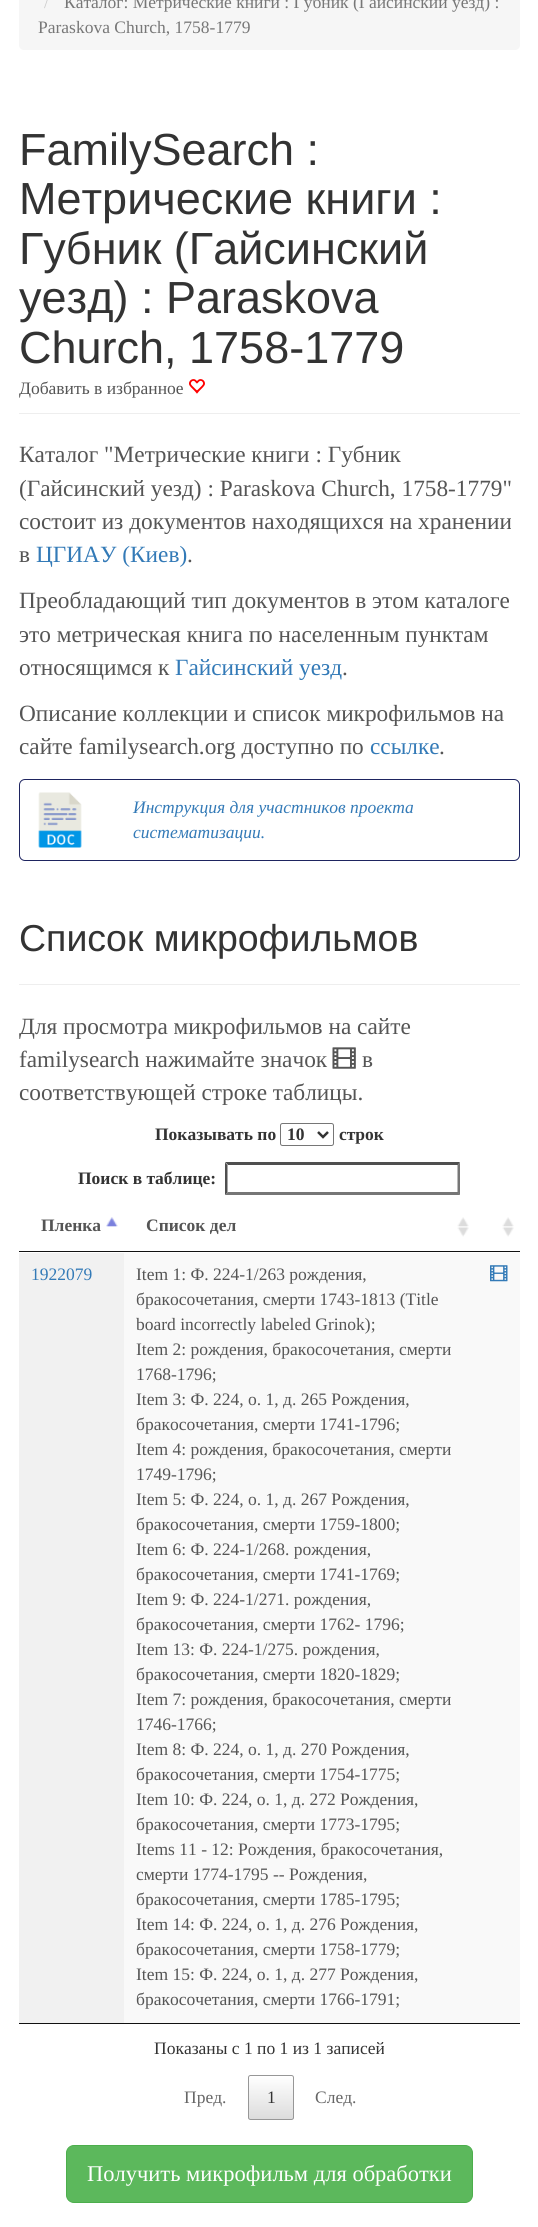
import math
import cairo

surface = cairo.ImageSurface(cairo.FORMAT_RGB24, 538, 2227)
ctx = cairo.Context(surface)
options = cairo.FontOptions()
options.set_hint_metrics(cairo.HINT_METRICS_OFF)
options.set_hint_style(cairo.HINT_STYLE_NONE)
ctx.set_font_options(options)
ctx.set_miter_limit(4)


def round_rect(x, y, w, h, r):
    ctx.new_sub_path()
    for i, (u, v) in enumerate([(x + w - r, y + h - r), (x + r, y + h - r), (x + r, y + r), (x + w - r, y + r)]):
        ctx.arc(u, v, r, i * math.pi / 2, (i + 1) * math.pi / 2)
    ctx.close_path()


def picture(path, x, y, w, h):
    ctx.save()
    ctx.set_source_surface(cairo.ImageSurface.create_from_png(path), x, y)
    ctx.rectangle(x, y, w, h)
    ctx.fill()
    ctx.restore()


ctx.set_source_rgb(1, 1, 1)
ctx.paint()
ctx.set_source_rgb(0.961, 0.961, 0.961)
round_rect(19, -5, 501, 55, 5)
ctx.fill()
ctx.select_font_face("Liberation Serif")
ctx.set_font_size(17.5)
ctx.set_source_rgb(0.8, 0.8, 0.8)
ctx.move_to(44, 8)
ctx.show_text("/")
ctx.set_source_rgb(0.467, 0.467, 0.467)
ctx.move_to(64, 8)
ctx.show_text("Каталог: Метрические книги : Губник (Гайсинский уезд) :")
ctx.move_to(38, 33)
ctx.show_text("Paraskova Church, 1758-1779")
ctx.set_source_rgb(0.933, 0.933, 0.933)
ctx.rectangle(19, 413, 501, 1)
ctx.fill()
ctx.select_font_face("Liberation Sans")
ctx.set_font_size(45)
ctx.set_source_rgb(0.2, 0.2, 0.2)
ctx.move_to(19, 165)
ctx.show_text("FamilySearch :")
ctx.move_to(19, 214)
ctx.show_text("Метрические книги :")
ctx.move_to(19, 264)
ctx.show_text("Губник (Гайсинский")
ctx.move_to(19, 313)
ctx.show_text("уезд) : Paraskova")
ctx.move_to(19, 363)
ctx.show_text("Church, 1758-1779")
ctx.select_font_face("Liberation Serif")
ctx.set_font_size(17.5)
ctx.set_source_rgb(0.333, 0.333, 0.333)
ctx.move_to(19, 394)
ctx.show_text("Добавить в избранное")
picture("img1.png", 189, 379, 16, 15)
ctx.set_font_size(23.3)
ctx.move_to(19, 462)
ctx.show_text("Каталог \"Метрические книги : Губник")
ctx.move_to(19, 496)
ctx.show_text("(Гайсинский уезд) : Paraskova Church, 1758-1779\"")
ctx.move_to(19, 529)
ctx.show_text("состоит из документов находящихся на хранении")
ctx.move_to(19, 562)
ctx.show_text("в")
ctx.set_source_rgb(0.2, 0.478, 0.718)
ctx.move_to(36, 562)
ctx.show_text("ЦГИАУ (Киев)")
ctx.set_source_rgb(0.333, 0.333, 0.333)
ctx.move_to(187, 562)
ctx.show_text(".")
ctx.move_to(19, 608)
ctx.show_text("Преобладающий тип документов в этом каталоге")
ctx.move_to(19, 642)
ctx.show_text("это метрическая книга по населенным пунктам")
ctx.move_to(19, 675)
ctx.show_text("относящимся к")
ctx.set_source_rgb(0.2, 0.478, 0.718)
ctx.move_to(175, 675)
ctx.show_text("Гайсинский уезд")
ctx.set_source_rgb(0.333, 0.333, 0.333)
ctx.move_to(342, 675)
ctx.show_text(".")
ctx.move_to(19, 721)
ctx.show_text("Описание коллекции и список микрофильмов на")
ctx.move_to(19, 754)
ctx.show_text("сайте familysearch.org доступно по")
ctx.set_source_rgb(0.2, 0.478, 0.718)
ctx.move_to(370, 754)
ctx.show_text("ссылке")
ctx.set_source_rgb(0.333, 0.333, 0.333)
ctx.move_to(439, 754)
ctx.show_text(".")
round_rect(19.5, 779.5, 500, 81, 5.5)
ctx.set_source_rgb(0.118, 0.141, 0.376)
ctx.set_line_width(1)
ctx.stroke()
picture("img2.png", 38, 792, 44, 56)
ctx.select_font_face("Liberation Serif", cairo.FONT_SLANT_ITALIC)
ctx.set_font_size(17.5)
ctx.set_source_rgb(0.2, 0.478, 0.718)
ctx.move_to(133, 813)
ctx.show_text("Инструкция для участников проекта")
ctx.move_to(133, 838)
ctx.show_text("систематизации.")
ctx.select_font_face("Liberation Sans")
ctx.set_font_size(37.5)
ctx.set_source_rgb(0.2, 0.2, 0.2)
ctx.move_to(19, 951)
ctx.show_text("Список микрофильмов")
ctx.set_source_rgb(0.933, 0.933, 0.933)
ctx.rectangle(19, 984, 501, 1)
ctx.fill()
ctx.select_font_face("Liberation Serif")
ctx.set_font_size(23.3)
ctx.set_source_rgb(0.333, 0.333, 0.333)
ctx.move_to(19, 1034)
ctx.show_text("Для просмотра микрофильмов на сайте")
ctx.move_to(19, 1067)
ctx.show_text("familysearch нажимайте значок")
picture("img3.png", 332, 1047, 24, 22)
ctx.move_to(362, 1067)
ctx.show_text("в")
ctx.move_to(19, 1100)
ctx.show_text("соответствующей строке таблицы.")
ctx.select_font_face("Liberation Serif", cairo.FONT_SLANT_NORMAL, cairo.FONT_WEIGHT_BOLD)
ctx.set_font_size(17.5)
ctx.set_source_rgb(0.2, 0.2, 0.2)
ctx.move_to(155, 1140)
ctx.show_text("Показывать по")
round_rect(280.5, 1123.5, 53, 22, 2)
ctx.set_source_rgb(0.463, 0.463, 0.463)
ctx.stroke()
ctx.new_path()
ctx.move_to(318, 1132)
ctx.line_to(323, 1137)
ctx.line_to(328, 1132)
ctx.set_source_rgb(0.2, 0.2, 0.2)
ctx.set_line_width(2.5)
ctx.stroke()
ctx.move_to(287, 1140)
ctx.show_text("10")
ctx.move_to(339, 1140)
ctx.show_text("строк")
ctx.move_to(78, 1184)
ctx.show_text("Поиск в таблице:")
ctx.set_source_rgb(0.31, 0.31, 0.31)
ctx.new_path()
ctx.move_to(225, 1162)
ctx.line_to(460, 1162)
ctx.line_to(458, 1165)
ctx.line_to(228, 1165)
ctx.close_path()
ctx.fill()
ctx.set_source_rgb(0.463, 0.463, 0.463)
ctx.new_path()
ctx.move_to(460, 1162.5)
ctx.line_to(460, 1195)
ctx.line_to(457.5, 1192.5)
ctx.line_to(457.5, 1165)
ctx.close_path()
ctx.fill()
ctx.new_path()
ctx.move_to(460, 1195)
ctx.line_to(225, 1195)
ctx.line_to(228, 1192)
ctx.line_to(458, 1192)
ctx.close_path()
ctx.fill()
ctx.set_source_rgb(0.31, 0.31, 0.31)
ctx.new_path()
ctx.move_to(225, 1195)
ctx.line_to(225, 1162.5)
ctx.line_to(227.5, 1165)
ctx.line_to(227.5, 1192.5)
ctx.close_path()
ctx.fill()
ctx.set_source_rgb(0.067, 0.067, 0.067)
ctx.rectangle(19, 2023, 501, 1)
ctx.fill()
picture("img4.png", 106, 1217, 12, 10)
ctx.rectangle(19, 1251, 501, 1)
ctx.fill()
ctx.set_source_rgb(0.333, 0.333, 0.333)
ctx.move_to(41, 1231)
ctx.show_text("Пленка")
picture("img5.png", 457, 1217, 12, 20)
ctx.move_to(146, 1231)
ctx.show_text("Список дел")
picture("img5.png", 502, 1217, 12, 20)
ctx.set_source_rgb(0.976, 0.976, 0.976)
ctx.rectangle(124, 1253, 396, 770)
ctx.fill()
ctx.set_source_rgb(0.945, 0.945, 0.945)
ctx.rectangle(19, 1253, 105, 770)
ctx.fill()
ctx.select_font_face("Liberation Serif")
ctx.set_source_rgb(0.2, 0.478, 0.718)
ctx.move_to(31, 1280)
ctx.show_text("1922079")
ctx.set_source_rgb(0.333, 0.333, 0.333)
ctx.move_to(136, 1280)
ctx.show_text("Item 1: Ф. 224-1/263 рождения,")
ctx.move_to(136, 1305)
ctx.show_text("бракосочетания, смерти 1743-1813 (Title")
ctx.move_to(136, 1330)
ctx.show_text("board incorrectly labeled Grinok);")
ctx.move_to(136, 1355)
ctx.show_text("Item 2: рождения, бракосочетания, смерти")
ctx.move_to(136, 1380)
ctx.show_text("1768-1796;")
ctx.move_to(136, 1405)
ctx.show_text("Item 3: Ф. 224, о. 1, д. 265 Рождения,")
ctx.move_to(136, 1430)
ctx.show_text("бракосочетания, смерти 1741-1796;")
ctx.move_to(136, 1455)
ctx.show_text("Item 4: рождения, бракосочетания, смерти")
ctx.move_to(136, 1480)
ctx.show_text("1749-1796;")
ctx.move_to(136, 1505)
ctx.show_text("Item 5: Ф. 224, о. 1, д. 267 Рождения,")
ctx.move_to(136, 1530)
ctx.show_text("бракосочетания, смерти 1759-1800;")
ctx.move_to(136, 1555)
ctx.show_text("Item 6: Ф. 224-1/268. рождения,")
ctx.move_to(136, 1580)
ctx.show_text("бракосочетания, смерти 1741-1769;")
ctx.move_to(136, 1605)
ctx.show_text("Item 9: Ф. 224-1/271. рождения,")
ctx.move_to(136, 1630)
ctx.show_text("бракосочетания, смерти 1762- 1796;")
ctx.move_to(136, 1655)
ctx.show_text("Item 13: Ф. 224-1/275. рождения,")
ctx.move_to(136, 1680)
ctx.show_text("бракосочетания, смерти 1820-1829;")
ctx.move_to(136, 1705)
ctx.show_text("Item 7: рождения, бракосочетания, смерти")
ctx.move_to(136, 1730)
ctx.show_text("1746-1766;")
ctx.move_to(136, 1755)
ctx.show_text("Item 8: Ф. 224, о. 1, д. 270 Рождения,")
ctx.move_to(136, 1780)
ctx.show_text("бракосочетания, смерти 1754-1775;")
ctx.move_to(136, 1805)
ctx.show_text("Item 10: Ф. 224, о. 1, д. 272 Рождения,")
ctx.move_to(136, 1830)
ctx.show_text("бракосочетания, смерти 1773-1795;")
ctx.move_to(136, 1855)
ctx.show_text("Items 11 - 12: Рождения, бракосочетания,")
ctx.move_to(136, 1880)
ctx.show_text("смерти 1774-1795 -- Рождения,")
ctx.move_to(136, 1905)
ctx.show_text("бракосочетания, смерти 1785-1795;")
ctx.move_to(136, 1930)
ctx.show_text("Item 14: Ф. 224, о. 1, д. 276 Рождения,")
ctx.move_to(136, 1955)
ctx.show_text("бракосочетания, смерти 1758-1779;")
ctx.move_to(136, 1980)
ctx.show_text("Item 15: Ф. 224, о. 1, д. 277 Рождения,")
ctx.move_to(136, 2005)
ctx.show_text("бракосочетания, смерти 1766-1791;")
picture("img6.png", 490, 1265, 18, 17)
ctx.set_source_rgb(0.2, 0.2, 0.2)
ctx.move_to(154, 2054)
ctx.show_text("Показаны с 1 по 1 из 1 записей")
ctx.set_source_rgb(0.4, 0.4, 0.4)
ctx.move_to(184, 2103)
ctx.show_text("Пред.")
ctx.save()
round_rect(248, 2075, 46, 45, 2.5)
ctx.clip()
gradient = cairo.LinearGradient(271, 2076, 271, 2119)
gradient.add_color_stop_rgba(0, 1, 1, 1, 1)
gradient.add_color_stop_rgba(1, 0.863, 0.863, 0.863, 1)
ctx.set_source(gradient)
ctx.rectangle(248, 2076, 46, 43)
ctx.fill()
ctx.restore()
round_rect(248.5, 2075.5, 45, 44, 2)
ctx.set_source_rgb(0.592, 0.592, 0.592)
ctx.set_line_width(1)
ctx.stroke()
ctx.set_source_rgb(0.2, 0.2, 0.2)
ctx.move_to(267, 2103)
ctx.show_text("1")
ctx.set_source_rgb(0.4, 0.4, 0.4)
ctx.move_to(315, 2103)
ctx.show_text("След.")
ctx.set_source_rgb(0.361, 0.722, 0.361)
round_rect(66.5, 2145.5, 406, 57, 7.5)
ctx.fill_preserve()
ctx.set_source_rgb(0.298, 0.682, 0.298)
ctx.stroke()
ctx.set_font_size(22.5)
ctx.set_source_rgb(1, 1, 1)
ctx.move_to(87, 2181)
ctx.show_text("Получить микрофильм для обработки")
surface.write_to_png("page.png")
